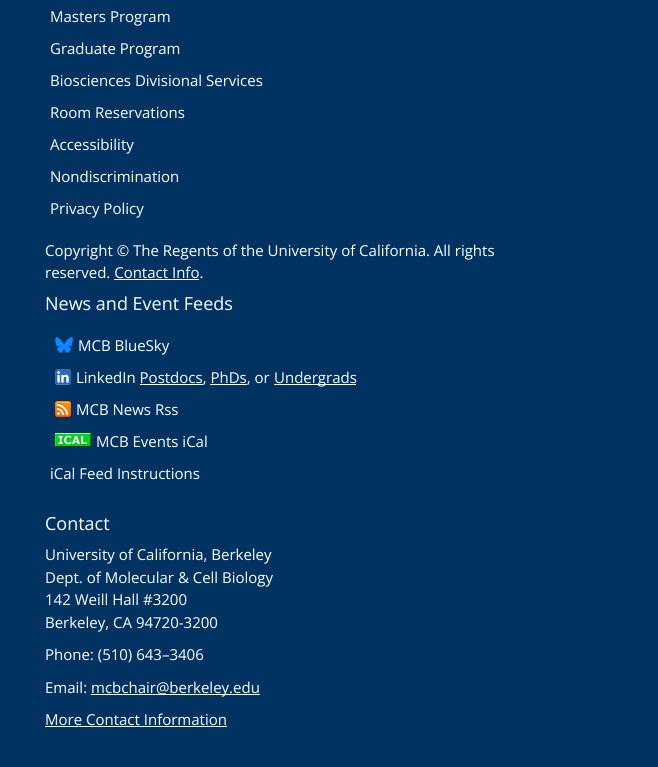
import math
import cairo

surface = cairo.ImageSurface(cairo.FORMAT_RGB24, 658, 767)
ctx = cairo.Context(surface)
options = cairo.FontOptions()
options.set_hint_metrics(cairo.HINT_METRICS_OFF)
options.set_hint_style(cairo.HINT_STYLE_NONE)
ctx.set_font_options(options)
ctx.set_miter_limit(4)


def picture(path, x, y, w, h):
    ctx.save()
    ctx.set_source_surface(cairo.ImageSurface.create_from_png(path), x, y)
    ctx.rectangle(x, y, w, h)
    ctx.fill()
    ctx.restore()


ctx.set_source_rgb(0, 0.196, 0.384)
ctx.paint()
ctx.select_font_face("Open Sans")
ctx.set_font_size(15)
ctx.set_source_rgb(1, 1, 1)
ctx.move_to(50, 22)
ctx.show_text("Masters Program")
ctx.move_to(50, 54)
ctx.show_text("Graduate Program")
ctx.move_to(50, 86)
ctx.show_text("Biosciences Divisional Services")
ctx.move_to(50, 118)
ctx.show_text("Room Reservations")
ctx.move_to(50, 150)
ctx.show_text("Accessibility")
ctx.move_to(50, 182)
ctx.show_text("Nondiscrimination")
ctx.move_to(50, 214)
ctx.show_text("Privacy Policy")
ctx.move_to(45, 256)
ctx.show_text("Copyright © The Regents of the University of California. All rights")
ctx.move_to(45, 278)
ctx.show_text("reserved. Contact Info.")
ctx.rectangle(114, 279, 85, 1)
ctx.fill()
ctx.set_font_size(18)
ctx.move_to(45, 310)
ctx.show_text("News and Event Feeds")
picture("img1.png", 55, 337, 18, 16)
ctx.set_font_size(15)
ctx.move_to(78, 351)
ctx.show_text("MCB BlueSky")
picture("img2.png", 55, 369, 16, 16)
ctx.move_to(76, 383)
ctx.show_text("LinkedIn Postdocs, PhDs, or")
ctx.rectangle(274, 384, 82, 1)
ctx.fill()
ctx.move_to(274, 383)
ctx.show_text("Undergrads")
ctx.rectangle(140, 384, 63, 1)
ctx.fill()
ctx.rectangle(210, 384, 37, 1)
ctx.fill()
picture("img3.png", 55, 401, 16, 16)
ctx.move_to(76, 415)
ctx.show_text("MCB News Rss")
picture("img4.png", 55, 433, 36, 14)
ctx.move_to(96, 447)
ctx.show_text("MCB Events iCal")
ctx.move_to(50, 479)
ctx.show_text("iCal Feed Instructions")
ctx.set_font_size(18)
ctx.move_to(45, 530)
ctx.show_text("Contact")
ctx.set_font_size(15)
ctx.move_to(45, 560)
ctx.show_text("University of California, Berkeley")
ctx.move_to(45, 583)
ctx.show_text("Dept. of Molecular & Cell Biology")
ctx.move_to(45, 605)
ctx.show_text("142 Weill Hall #3200")
ctx.move_to(45, 628)
ctx.show_text("Berkeley, CA 94720-3200")
ctx.move_to(45, 660)
ctx.show_text("Phone: (510) 643–3406")
ctx.move_to(45, 693)
ctx.show_text("Email:")
ctx.rectangle(91, 694, 169, 1)
ctx.fill()
ctx.move_to(91, 693)
ctx.show_text("mcbchair@berkeley.edu")
ctx.move_to(45, 725)
ctx.show_text("More Contact Information")
ctx.rectangle(45, 726, 182, 1)
ctx.fill()
surface.write_to_png("page.png")
